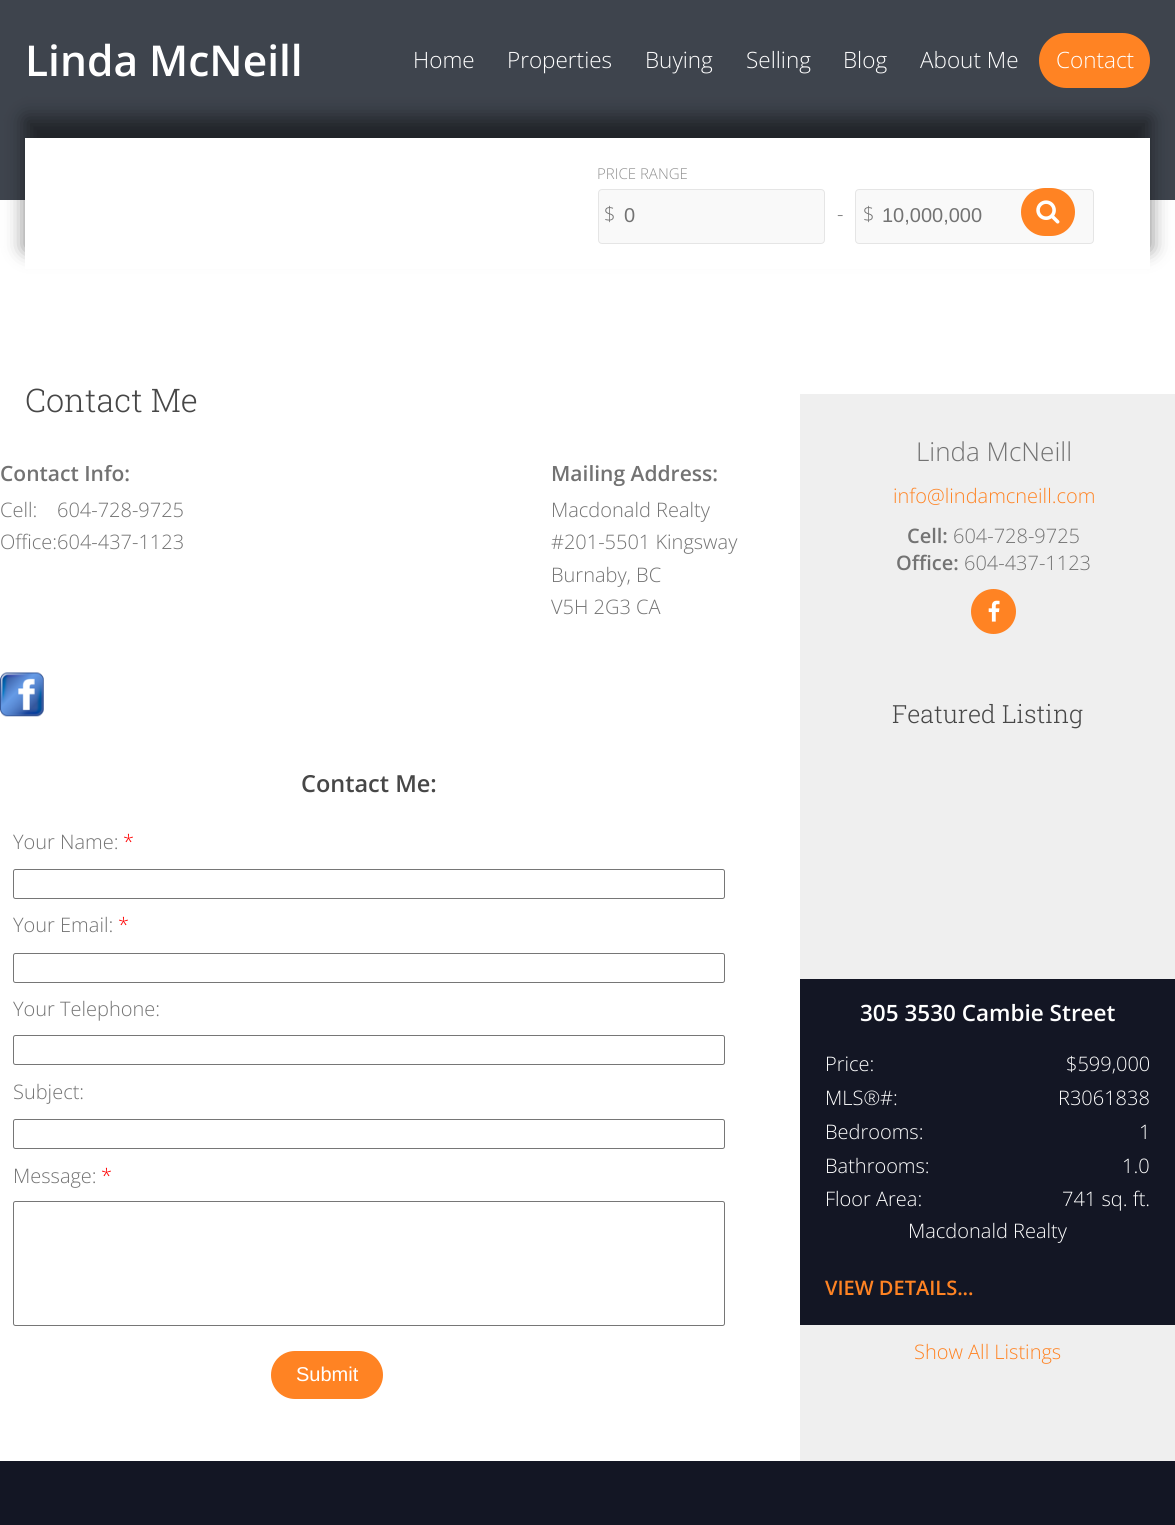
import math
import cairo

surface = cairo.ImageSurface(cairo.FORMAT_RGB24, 1175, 1525)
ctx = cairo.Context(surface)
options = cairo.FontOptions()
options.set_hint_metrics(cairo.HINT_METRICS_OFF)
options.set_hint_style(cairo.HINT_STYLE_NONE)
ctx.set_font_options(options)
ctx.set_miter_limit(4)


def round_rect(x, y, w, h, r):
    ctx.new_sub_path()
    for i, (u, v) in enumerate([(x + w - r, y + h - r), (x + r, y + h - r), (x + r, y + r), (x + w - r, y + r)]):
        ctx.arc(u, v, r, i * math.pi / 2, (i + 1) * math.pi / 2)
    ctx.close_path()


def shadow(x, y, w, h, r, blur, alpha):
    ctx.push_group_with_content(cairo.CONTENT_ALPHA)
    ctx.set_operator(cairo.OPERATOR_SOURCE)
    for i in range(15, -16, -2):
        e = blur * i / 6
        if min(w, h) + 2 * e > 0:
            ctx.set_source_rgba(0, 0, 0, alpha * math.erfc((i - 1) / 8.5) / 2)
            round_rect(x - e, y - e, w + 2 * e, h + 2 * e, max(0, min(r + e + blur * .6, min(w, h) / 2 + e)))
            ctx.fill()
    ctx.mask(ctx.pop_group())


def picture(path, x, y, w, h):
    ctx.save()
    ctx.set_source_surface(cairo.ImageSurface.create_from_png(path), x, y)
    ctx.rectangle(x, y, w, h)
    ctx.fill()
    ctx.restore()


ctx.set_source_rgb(1, 1, 1)
ctx.paint()
ctx.set_source_rgb(0.243, 0.267, 0.302)
ctx.rectangle(0, 0, 1175, 200)
ctx.fill()
ctx.select_font_face("Open Sans SemiBold")
ctx.set_font_size(42.5)
ctx.set_source_rgb(1, 1, 1)
ctx.move_to(25, 76)
ctx.show_text("Linda McNeill")
ctx.select_font_face("Open Sans Light")
ctx.set_font_size(22.5)
ctx.move_to(413, 68)
ctx.show_text("Home")
ctx.move_to(507, 68)
ctx.show_text("Properties")
ctx.move_to(645, 68)
ctx.show_text("Buying")
ctx.move_to(746, 68)
ctx.show_text("Selling")
ctx.move_to(843, 68)
ctx.show_text("Blog")
ctx.move_to(920, 68)
ctx.show_text("About Me")
ctx.set_source_rgb(0, 0, 0)
shadow(25, 118, 1125, 131, 0, 10, 0.5)
ctx.set_source_rgb(1, 0.514, 0.137)
round_rect(1039, 33, 111, 55, 27.5)
ctx.fill()
ctx.set_source_rgb(1, 1, 1)
ctx.move_to(1056, 68)
ctx.show_text("Contact")
ctx.rectangle(25, 138, 1125, 131)
ctx.fill()
ctx.set_font_size(15)
ctx.set_source_rgb(0.565, 0.565, 0.565)
ctx.move_to(597, 179)
ctx.show_text("PRICE RANGE")
ctx.set_source_rgb(0.976, 0.976, 0.976)
round_rect(598.5, 189.5, 226, 54, 3.5)
ctx.fill_preserve()
ctx.set_source_rgb(0.898, 0.898, 0.898)
ctx.set_line_width(1)
ctx.stroke()
ctx.set_font_size(20)
ctx.set_source_rgb(0.451, 0.451, 0.451)
ctx.move_to(604, 221)
ctx.show_text("$")
ctx.select_font_face("Liberation Sans")
ctx.move_to(624, 222)
ctx.show_text("0")
ctx.select_font_face("Open Sans Light")
ctx.move_to(837, 221)
ctx.show_text("-")
ctx.set_source_rgb(0.976, 0.976, 0.976)
round_rect(855.5, 189.5, 238, 54, 3.5)
ctx.fill_preserve()
ctx.set_source_rgb(0.898, 0.898, 0.898)
ctx.stroke()
ctx.set_source_rgb(0.451, 0.451, 0.451)
ctx.move_to(863, 221)
ctx.show_text("$")
ctx.select_font_face("Liberation Sans")
ctx.move_to(882, 222)
ctx.show_text("10,000,000")
ctx.set_source_rgb(1, 0.514, 0.137)
round_rect(1021, 188, 54, 48, 24)
ctx.fill()
picture("img1.png", 1036, 200, 24, 24)
ctx.select_font_face("Roboto Slab Light")
ctx.set_font_size(32.5)
ctx.set_source_rgb(0.278, 0.278, 0.278)
ctx.move_to(25, 412)
ctx.show_text("Contact Me")
ctx.select_font_face("Open Sans SemiBold")
ctx.set_font_size(21)
ctx.set_source_rgb(0.451, 0.451, 0.451)
ctx.move_to(0, 481)
ctx.show_text("Contact Info:")
ctx.select_font_face("Open Sans Light")
ctx.set_font_size(20)
ctx.move_to(0, 517)
ctx.show_text("Cell:")
ctx.move_to(57, 517)
ctx.show_text("604-728-9725")
ctx.move_to(0, 549)
ctx.show_text("Office:604-437-1123")
ctx.select_font_face("Open Sans SemiBold")
ctx.set_font_size(21)
ctx.move_to(551, 481)
ctx.show_text("Mailing Address:")
ctx.select_font_face("Open Sans Light")
ctx.set_font_size(20)
ctx.move_to(551, 517)
ctx.show_text("Macdonald Realty")
ctx.move_to(551, 549)
ctx.show_text("#201-5501 Kingsway")
ctx.move_to(551, 582)
ctx.show_text("Burnaby, BC")
ctx.move_to(551, 614)
ctx.show_text("V5H 2G3 CA")
picture("img2.png", 0, 672, 44, 45)
ctx.select_font_face("Open Sans SemiBold")
ctx.set_font_size(23.5)
ctx.set_source_rgb(0.278, 0.278, 0.278)
ctx.move_to(301, 792)
ctx.show_text("Contact Me:")
ctx.select_font_face("Open Sans Light")
ctx.set_font_size(20)
ctx.set_source_rgb(0.451, 0.451, 0.451)
ctx.move_to(13, 849)
ctx.show_text("Your Name:")
ctx.set_source_rgb(1, 0, 0)
ctx.move_to(123, 849)
ctx.show_text("*")
round_rect(13.5, 869.5, 711, 29, 2)
ctx.set_source_rgb(0.463, 0.463, 0.463)
ctx.stroke()
ctx.set_source_rgb(0.451, 0.451, 0.451)
ctx.move_to(13, 932)
ctx.show_text("Your Email:")
ctx.set_source_rgb(1, 0, 0)
ctx.move_to(118, 932)
ctx.show_text("*")
round_rect(13.5, 953.5, 711, 29, 2)
ctx.set_source_rgb(0.463, 0.463, 0.463)
ctx.stroke()
ctx.set_source_rgb(0.451, 0.451, 0.451)
ctx.move_to(13, 1016)
ctx.show_text("Your Telephone:")
round_rect(13.5, 1035.5, 711, 29, 2)
ctx.set_source_rgb(0.463, 0.463, 0.463)
ctx.stroke()
ctx.set_source_rgb(0.451, 0.451, 0.451)
ctx.move_to(13, 1099)
ctx.show_text("Subject:")
round_rect(13.5, 1119.5, 711, 29, 2)
ctx.set_source_rgb(0.463, 0.463, 0.463)
ctx.stroke()
ctx.set_source_rgb(0.451, 0.451, 0.451)
ctx.move_to(13, 1183)
ctx.show_text("Message:")
ctx.set_source_rgb(1, 0, 0)
ctx.move_to(101, 1183)
ctx.show_text("*")
round_rect(13.5, 1201.5, 711, 124, 2)
ctx.set_source_rgb(0.463, 0.463, 0.463)
ctx.stroke()
ctx.set_source_rgb(1, 0.514, 0.137)
round_rect(271, 1351, 112, 48, 24)
ctx.fill()
ctx.select_font_face("Liberation Sans")
ctx.set_source_rgb(1, 1, 1)
ctx.move_to(296, 1381)
ctx.show_text("Submit")
ctx.set_source_rgb(0.937, 0.937, 0.937)
ctx.rectangle(800, 394, 375, 1067)
ctx.fill()
ctx.select_font_face("Open Sans Light")
ctx.set_font_size(26)
ctx.set_source_rgb(0.451, 0.451, 0.451)
ctx.move_to(916, 461)
ctx.show_text("Linda McNeill")
ctx.set_font_size(20)
ctx.set_source_rgb(1, 0.514, 0.137)
ctx.move_to(893, 503)
ctx.show_text("info@lindamcneill.com")
ctx.select_font_face("Open Sans SemiBold")
ctx.set_source_rgb(0.451, 0.451, 0.451)
ctx.move_to(907, 543)
ctx.show_text("Cell:")
ctx.select_font_face("Open Sans Light")
ctx.move_to(953, 543)
ctx.show_text("604-728-9725")
ctx.select_font_face("Open Sans SemiBold")
ctx.move_to(896, 570)
ctx.show_text("Office:")
ctx.select_font_face("Open Sans Light")
ctx.move_to(964, 570)
ctx.show_text("604-437-1123")
ctx.set_source_rgb(1, 0.514, 0.137)
ctx.new_path()
ctx.arc(993.5, 611.5, 22.5, 0, 2 * math.pi)
ctx.fill()
picture("img3.png", 988, 600, 12, 22)
ctx.select_font_face("Roboto Slab Light")
ctx.set_font_size(25)
ctx.set_source_rgb(0.278, 0.278, 0.278)
ctx.move_to(892, 723)
ctx.show_text("Featured Listing")
ctx.set_source_rgb(0.075, 0.086, 0.141)
ctx.rectangle(800, 979, 375, 346)
ctx.fill()
ctx.select_font_face("Open Sans SemiBold")
ctx.set_font_size(22.5)
ctx.set_source_rgb(1, 1, 1)
ctx.move_to(860, 1021)
ctx.show_text("305 3530 Cambie Street")
ctx.select_font_face("Open Sans Light")
ctx.set_font_size(20)
ctx.move_to(825, 1071)
ctx.show_text("Price:")
ctx.move_to(1066, 1071)
ctx.show_text("$599,000")
ctx.move_to(825, 1105)
ctx.show_text("MLS®#:")
ctx.move_to(1058, 1105)
ctx.show_text("R3061838")
ctx.move_to(825, 1139)
ctx.show_text("Bedrooms:")
ctx.move_to(1139, 1139)
ctx.show_text("1")
ctx.move_to(825, 1173)
ctx.show_text("Bathrooms:")
ctx.move_to(1122, 1173)
ctx.show_text("1.0")
ctx.move_to(825, 1206)
ctx.show_text("Floor Area:")
ctx.move_to(1062, 1206)
ctx.show_text("741 sq. ft.")
ctx.move_to(908, 1238)
ctx.show_text("Macdonald Realty")
ctx.select_font_face("Open Sans SemiBold")
ctx.set_source_rgb(1, 0.514, 0.137)
ctx.move_to(825, 1295)
ctx.show_text("VIEW DETAILS...")
ctx.select_font_face("Open Sans Light")
ctx.move_to(914, 1359)
ctx.show_text("Show All Listings")
ctx.set_source_rgb(0.075, 0.086, 0.141)
ctx.rectangle(0, 1461, 1175, 64)
ctx.fill()
surface.write_to_png("page.png")
